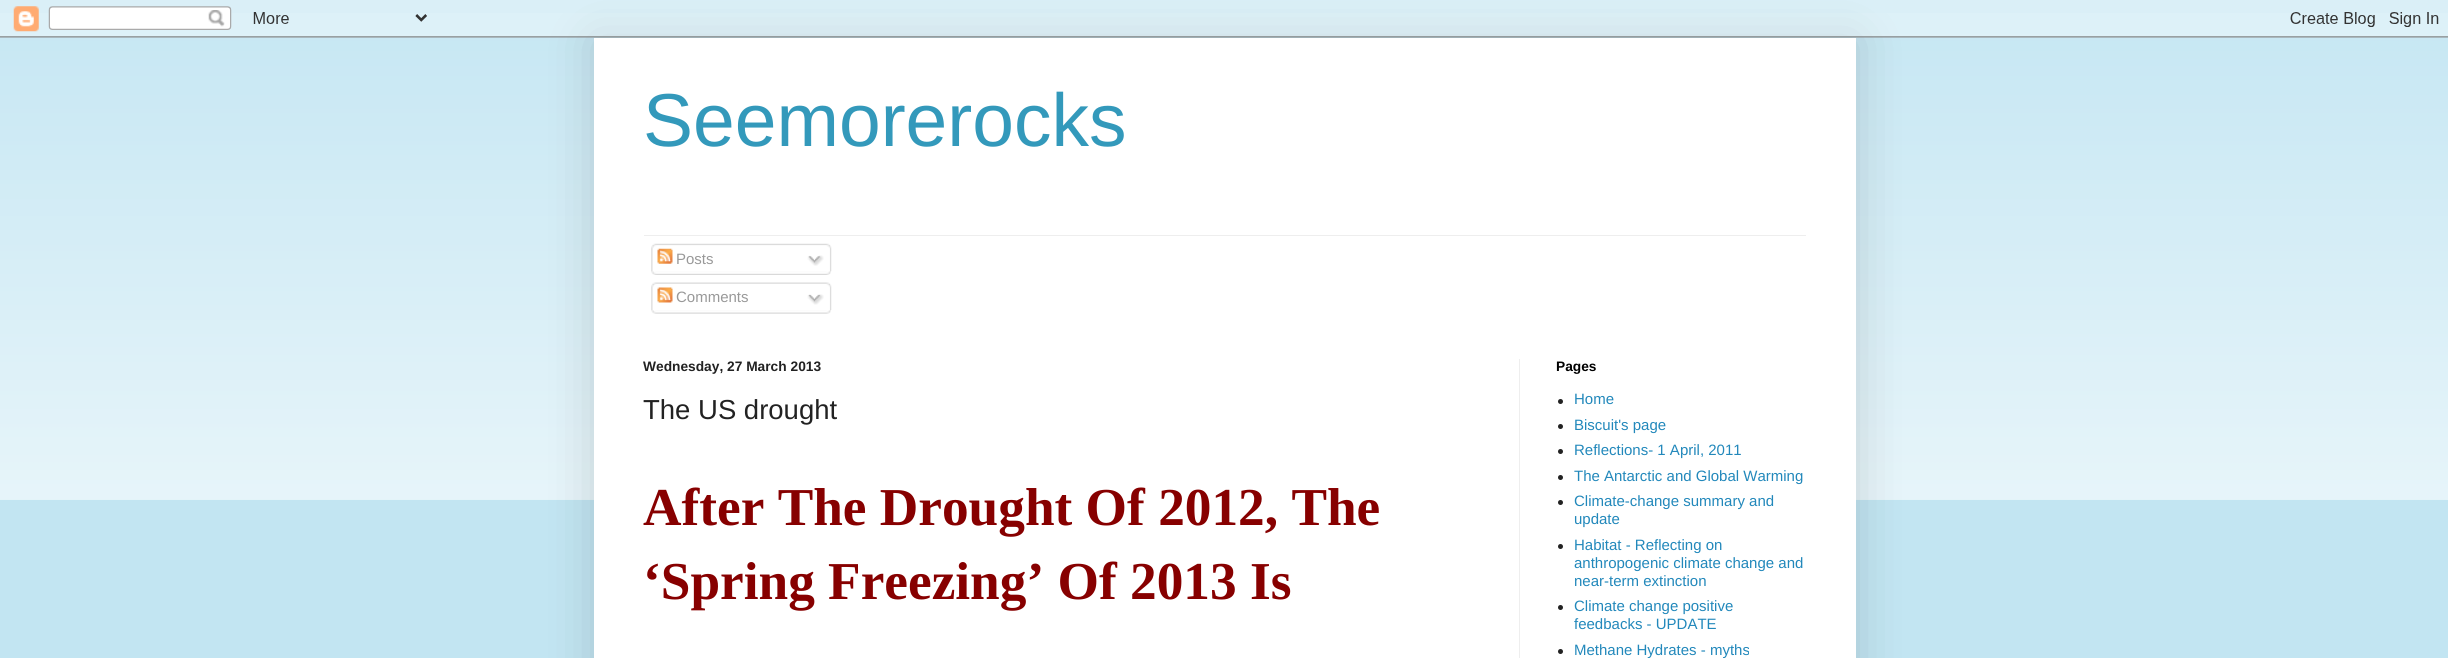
import math
import cairo

surface = cairo.ImageSurface(cairo.FORMAT_RGB24, 2448, 658)
ctx = cairo.Context(surface)
options = cairo.FontOptions()
options.set_hint_metrics(cairo.HINT_METRICS_OFF)
options.set_hint_style(cairo.HINT_STYLE_NONE)
ctx.set_font_options(options)
ctx.set_miter_limit(4)


def round_rect(x, y, w, h, r):
    ctx.new_sub_path()
    for i, (u, v) in enumerate([(x + w - r, y + h - r), (x + r, y + h - r), (x + r, y + r), (x + w - r, y + r)]):
        ctx.arc(u, v, r, i * math.pi / 2, (i + 1) * math.pi / 2)
    ctx.close_path()


def shadow(x, y, w, h, r, blur, alpha):
    ctx.push_group_with_content(cairo.CONTENT_ALPHA)
    ctx.set_operator(cairo.OPERATOR_SOURCE)
    for i in range(15, -16, -2):
        e = blur * i / 6
        if min(w, h) + 2 * e > 0:
            ctx.set_source_rgba(0, 0, 0, alpha * math.erfc((i - 1) / 8.5) / 2)
            round_rect(x - e, y - e, w + 2 * e, h + 2 * e, max(0, min(r + e + blur * .6, min(w, h) / 2 + e)))
            ctx.fill()
    ctx.mask(ctx.pop_group())


def picture(path, x, y, w, h):
    ctx.save()
    ctx.set_source_surface(cairo.ImageSurface.create_from_png(path), x, y)
    ctx.rectangle(x, y, w, h)
    ctx.fill()
    ctx.restore()


ctx.set_source_rgb(0.761, 0.898, 0.949)
ctx.paint()
picture("img2.png", 0, 13, 2448, 487)
ctx.set_source_rgb(0, 0, 0)
shadow(594, 38, 1262, 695, 0, 25, 0.15)
picture("img1.png", 0, 0, 2448, 38)
ctx.set_source_rgb(1, 1, 1)
ctx.rectangle(594, 38, 1262, 620)
ctx.fill()
ctx.select_font_face("Liberation Sans")
ctx.set_font_size(75)
ctx.set_source_rgb(0.2, 0.6, 0.733)
ctx.move_to(643, 146)
ctx.show_text("Seemorerocks")
ctx.set_source_rgb(0.933, 0.933, 0.933)
ctx.rectangle(644, 235, 1162, 1)
ctx.fill()
picture("img3.png", 651, 243, 181, 29)
picture("img4.png", 657, 248, 16, 16)
ctx.set_font_size(15)
ctx.set_source_rgb(0.6, 0.6, 0.6)
ctx.move_to(676, 264)
ctx.show_text("Posts")
picture("img5.png", 807, 255, 17, 11)
picture("img6.png", 651, 271, 180, 4)
picture("img7.png", 651, 282, 181, 28)
picture("img8.png", 657, 287, 16, 16)
ctx.move_to(676, 302)
ctx.show_text("Comments")
picture("img9.png", 807, 294, 17, 11)
picture("img10.png", 651, 310, 180, 4)
ctx.set_source_rgb(0.933, 0.933, 0.933)
ctx.rectangle(1519, 359, 1, 299)
ctx.fill()
ctx.select_font_face("Liberation Sans", cairo.FONT_SLANT_NORMAL, cairo.FONT_WEIGHT_BOLD)
ctx.set_font_size(13.75)
ctx.set_source_rgb(0.133, 0.133, 0.133)
ctx.move_to(643, 371)
ctx.show_text("Wednesday, 27 March 2013")
ctx.select_font_face("Liberation Sans")
ctx.set_font_size(27.5)
ctx.move_to(643, 419)
ctx.show_text("The US drought")
ctx.select_font_face("Liberation Serif", cairo.FONT_SLANT_NORMAL, cairo.FONT_WEIGHT_BOLD)
ctx.set_font_size(53.3)
ctx.set_source_rgb(0.529, 0, 0)
ctx.move_to(643, 525)
ctx.show_text("After The Drought Of 2012, The")
ctx.move_to(643, 599)
ctx.show_text("‘Spring Freezing’ Of 2013 Is")
ctx.select_font_face("Liberation Sans", cairo.FONT_SLANT_NORMAL, cairo.FONT_WEIGHT_BOLD)
ctx.set_font_size(13.75)
ctx.set_source_rgb(0, 0, 0)
ctx.move_to(1556, 371)
ctx.show_text("Pages")
ctx.set_source_rgb(0.133, 0.133, 0.133)
ctx.new_path()
ctx.arc(1560.5, 401.5, 2.5, 0, 2 * math.pi)
ctx.fill()
ctx.select_font_face("Liberation Sans")
ctx.set_font_size(15)
ctx.set_source_rgb(0.133, 0.533, 0.733)
ctx.move_to(1574, 404)
ctx.show_text("Home")
ctx.set_source_rgb(0.133, 0.133, 0.133)
ctx.new_path()
ctx.arc(1560.5, 426.5, 2.5, 0, 2 * math.pi)
ctx.fill()
ctx.set_source_rgb(0.133, 0.533, 0.733)
ctx.move_to(1574, 430)
ctx.show_text("Biscuit's page")
ctx.set_source_rgb(0.133, 0.133, 0.133)
ctx.new_path()
ctx.arc(1560.5, 451.5, 2.5, 0, 2 * math.pi)
ctx.fill()
ctx.set_source_rgb(0.133, 0.533, 0.733)
ctx.move_to(1574, 455)
ctx.show_text("Reflections- 1 April, 2011")
ctx.set_source_rgb(0.133, 0.133, 0.133)
ctx.new_path()
ctx.arc(1560.5, 477.5, 2.5, 0, 2 * math.pi)
ctx.fill()
ctx.set_source_rgb(0.133, 0.533, 0.733)
ctx.move_to(1574, 481)
ctx.show_text("The Antarctic and Global Warming")
ctx.set_source_rgb(0.133, 0.133, 0.133)
ctx.new_path()
ctx.arc(1560.5, 502.5, 2.5, 0, 2 * math.pi)
ctx.fill()
ctx.set_source_rgb(0.133, 0.533, 0.733)
ctx.move_to(1574, 506)
ctx.show_text("Climate-change summary and")
ctx.move_to(1574, 524)
ctx.show_text("update")
ctx.set_source_rgb(0.133, 0.133, 0.133)
ctx.new_path()
ctx.arc(1560.5, 546.5, 2.5, 0, 2 * math.pi)
ctx.fill()
ctx.set_source_rgb(0.133, 0.533, 0.733)
ctx.move_to(1574, 550)
ctx.show_text("Habitat - Reflecting on")
ctx.move_to(1574, 568)
ctx.show_text("anthropogenic climate change and")
ctx.move_to(1574, 586)
ctx.show_text("near-term extinction")
ctx.set_source_rgb(0.133, 0.133, 0.133)
ctx.new_path()
ctx.arc(1560.5, 607.5, 2.5, 0, 2 * math.pi)
ctx.fill()
ctx.set_source_rgb(0.133, 0.533, 0.733)
ctx.move_to(1574, 611)
ctx.show_text("Climate change positive")
ctx.move_to(1574, 629)
ctx.show_text("feedbacks - UPDATE")
ctx.set_source_rgb(0.133, 0.133, 0.133)
ctx.new_path()
ctx.arc(1560.5, 651.5, 2.5, 0, 2 * math.pi)
ctx.fill()
ctx.set_source_rgb(0.133, 0.533, 0.733)
ctx.move_to(1574, 655)
ctx.show_text("Methane Hydrates - myths")
surface.write_to_png("page.png")
